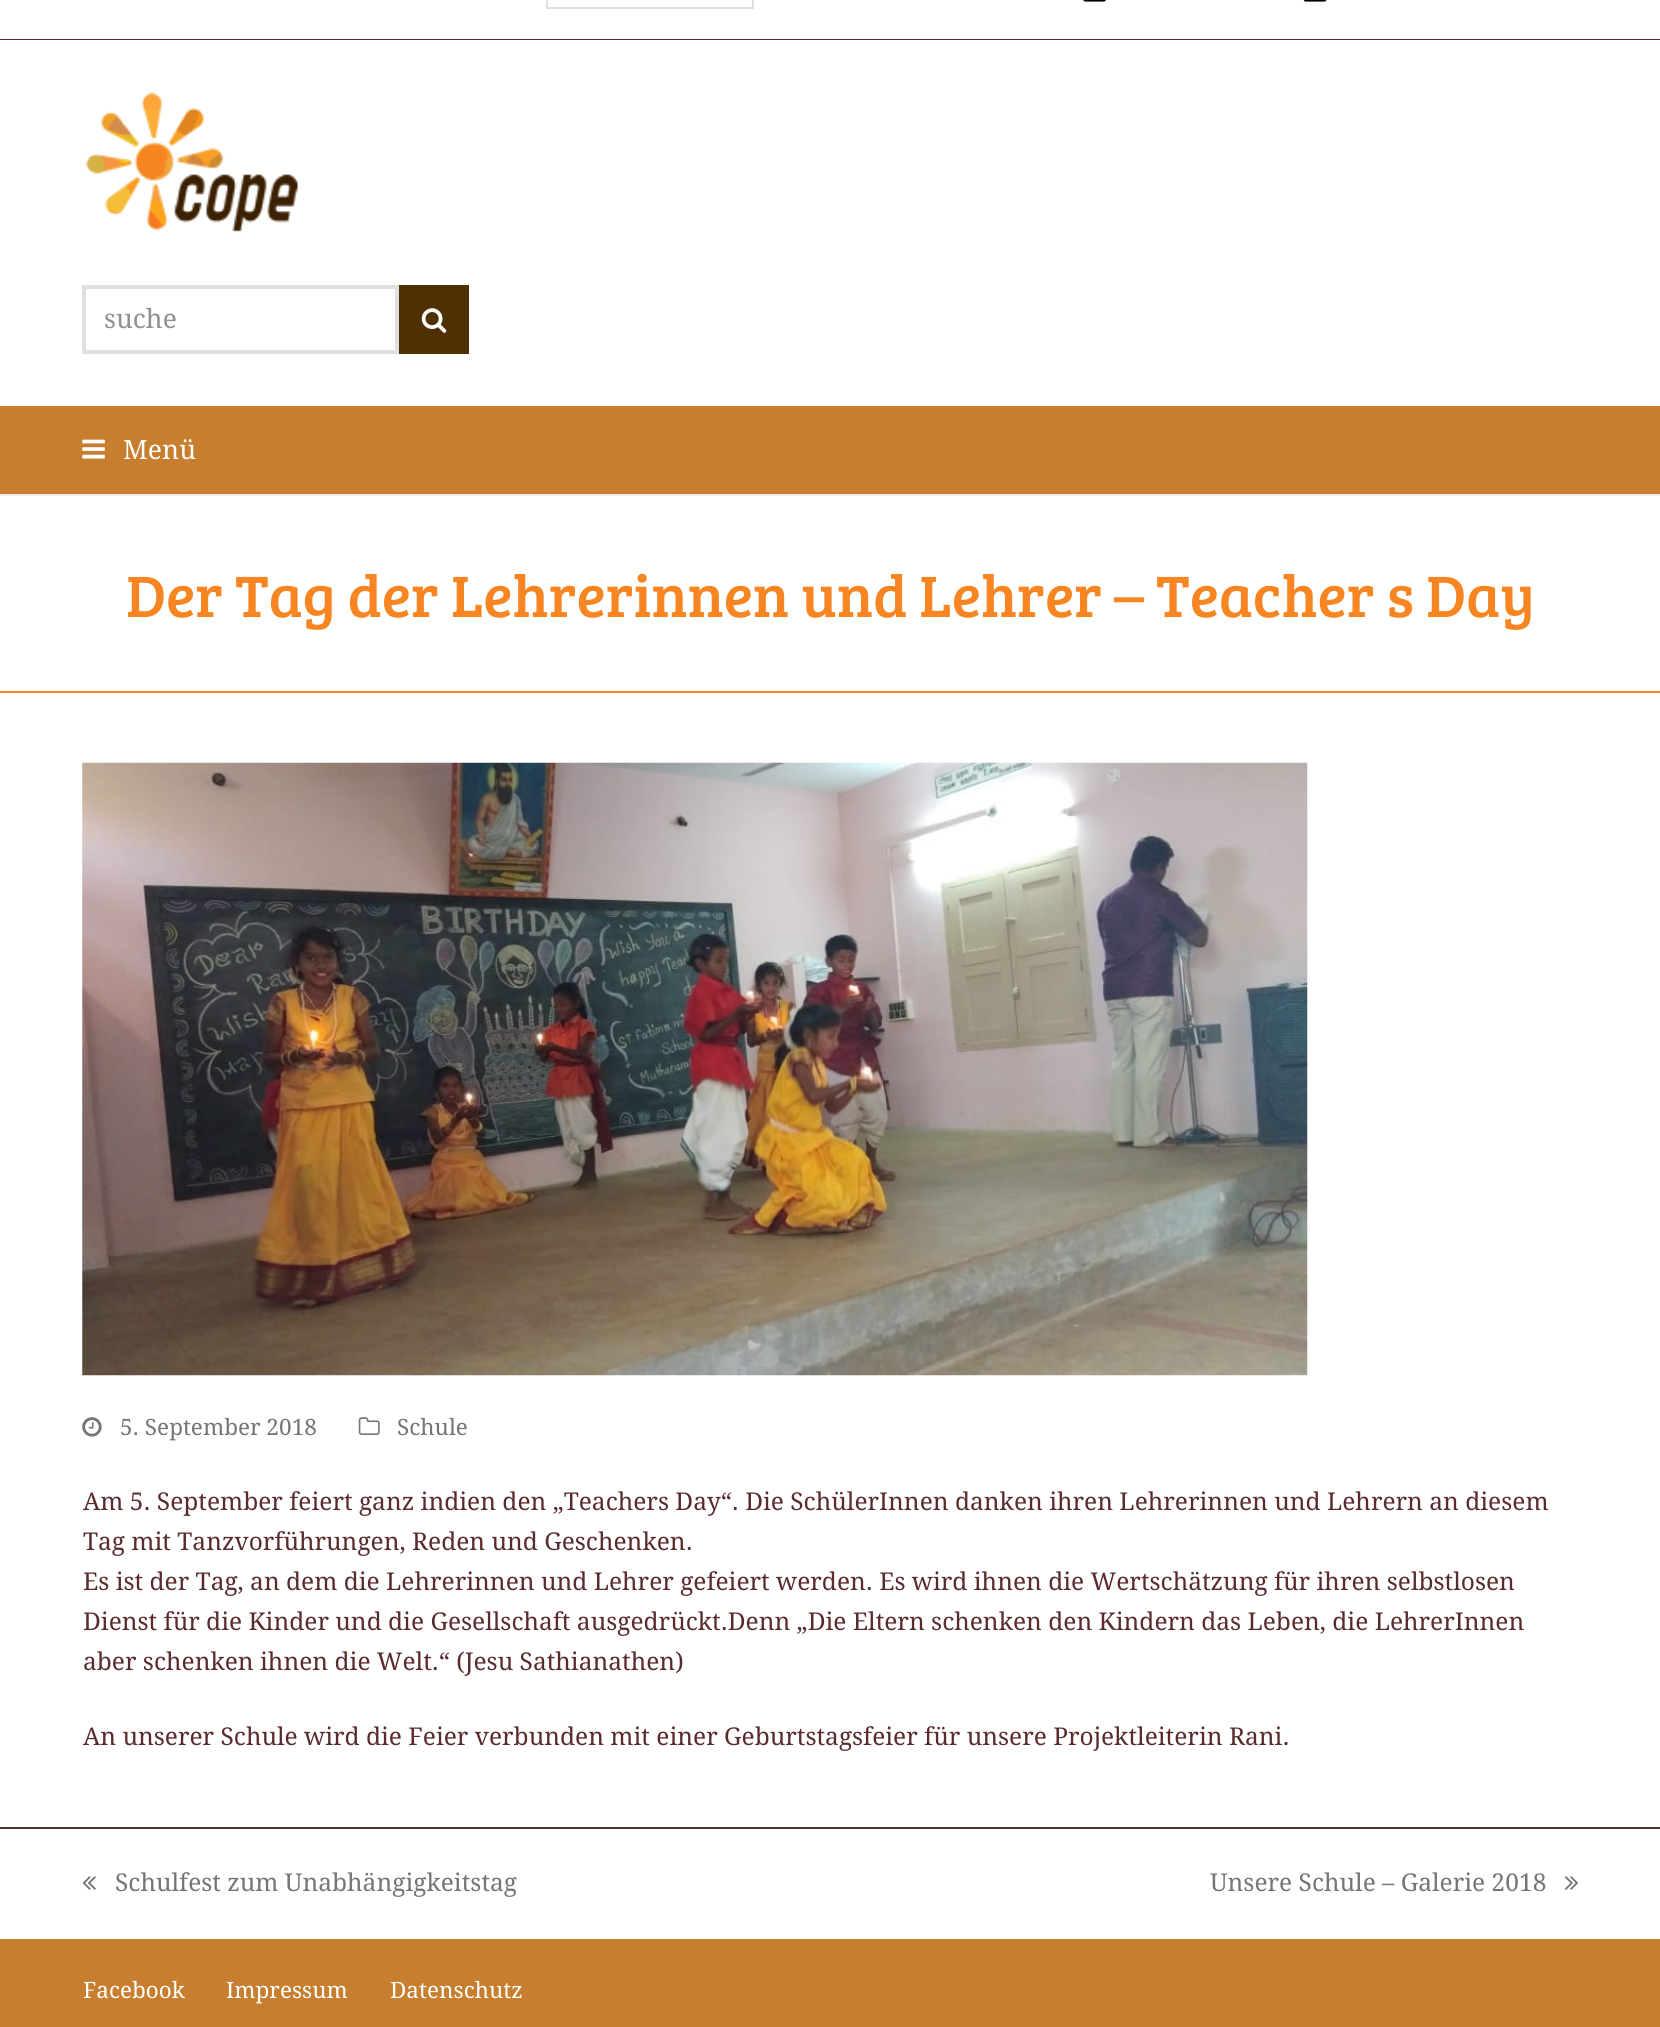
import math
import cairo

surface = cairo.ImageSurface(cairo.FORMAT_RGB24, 1660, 2027)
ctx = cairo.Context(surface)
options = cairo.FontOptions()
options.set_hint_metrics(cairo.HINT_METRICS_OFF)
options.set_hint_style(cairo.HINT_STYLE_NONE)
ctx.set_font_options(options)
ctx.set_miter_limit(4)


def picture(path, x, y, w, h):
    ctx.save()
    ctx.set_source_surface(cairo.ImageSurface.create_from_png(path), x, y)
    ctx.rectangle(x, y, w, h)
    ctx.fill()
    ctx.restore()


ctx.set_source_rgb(1, 1, 1)
ctx.paint()
ctx.set_source_rgb(0.353, 0.169, 0.173)
ctx.rectangle(0, 39, 1660, 1)
ctx.fill()
ctx.rectangle(547, -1, 206, 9)
ctx.set_source_rgb(0.878, 0.878, 0.878)
ctx.stroke()
picture("img1.png", 1083, 0, 23, 2)
picture("img2.png", 1303, 0, 24, 2)
picture("img3.png", 85, 92, 213, 140)
ctx.rectangle(84, 287, 313, 65)
ctx.set_line_width(4)
ctx.stroke()
ctx.select_font_face("Droid Serif")
ctx.set_font_size(26.5)
ctx.set_source_rgb(0.565, 0.565, 0.565)
ctx.move_to(104, 328)
ctx.show_text("suche")
ctx.set_source_rgb(0.31, 0.188, 0.008)
ctx.rectangle(399, 285, 70, 69)
ctx.fill()
picture("img4.png", 421, 308, 26, 25)
ctx.set_source_rgb(0.78, 0.494, 0.184)
ctx.rectangle(0, 406, 1660, 88)
ctx.fill()
picture("img5.png", 82, 439, 23, 20)
ctx.set_source_rgb(1, 1, 1)
ctx.move_to(123, 459)
ctx.show_text("Menü")
ctx.set_source_rgb(0.933, 0.933, 0.933)
ctx.rectangle(0, 494, 1660, 2)
ctx.fill()
ctx.set_source_rgb(0.965, 0.522, 0.129)
ctx.rectangle(0, 691, 1660, 2)
ctx.fill()
ctx.select_font_face("Bree Serif")
ctx.set_font_size(60.3)
ctx.move_to(126, 617)
ctx.show_text("Der Tag der Lehrerinnen und Lehrer – Teacher s Day")
picture("img6.png", 82, 762, 1226, 614)
picture("img7.png", 82, 1417, 20, 20)
ctx.select_font_face("Droid Serif")
ctx.set_font_size(22.5)
ctx.set_source_rgb(0.459, 0.459, 0.459)
ctx.move_to(120, 1435)
ctx.show_text("5. September 2018")
picture("img8.png", 358, 1417, 22, 18)
ctx.move_to(397, 1435)
ctx.show_text("Schule")
ctx.set_font_size(24.5)
ctx.set_source_rgb(0.353, 0.169, 0.173)
ctx.move_to(83, 1510)
ctx.show_text("Am 5. September feiert ganz indien den „Teachers Day“. Die SchülerInnen danken ihren Lehrerinnen und Lehrern an diesem")
ctx.move_to(83, 1550)
ctx.show_text("Tag mit Tanzvorführungen, Reden und Geschenken.")
ctx.move_to(83, 1590)
ctx.show_text("Es ist der Tag, an dem die Lehrerinnen und Lehrer gefeiert werden. Es wird ihnen die Wertschätzung für ihren selbstlosen")
ctx.move_to(83, 1630)
ctx.show_text("Dienst für die Kinder und die Gesellschaft ausgedrückt.Denn „Die Eltern schenken den Kindern das Leben, die LehrerInnen")
ctx.move_to(83, 1670)
ctx.show_text("aber schenken ihnen die Welt.“ (Jesu Sathianathen)")
ctx.move_to(83, 1745)
ctx.show_text("An unserer Schule wird die Feier verbunden mit einer Geburtstagsfeier für unsere Projektleiterin Rani.")
ctx.rectangle(0, 1827, 1660, 2)
ctx.fill()
picture("img9.png", 82, 1876, 14, 14)
ctx.set_source_rgb(0.459, 0.459, 0.459)
ctx.move_to(115, 1891)
ctx.show_text("Schulfest zum Unabhängigkeitstag")
ctx.move_to(1210, 1891)
ctx.show_text("Unsere Schule – Galerie 2018")
picture("img10.png", 1565, 1876, 13, 14)
ctx.set_source_rgb(0.78, 0.494, 0.184)
ctx.rectangle(0, 1939, 1660, 88)
ctx.fill()
ctx.set_font_size(22.5)
ctx.set_source_rgb(1, 1, 1)
ctx.move_to(83, 1998)
ctx.show_text("Facebook")
ctx.move_to(226, 1998)
ctx.show_text("Impressum")
ctx.move_to(390, 1998)
ctx.show_text("Datenschutz")
surface.write_to_png("page.png")
